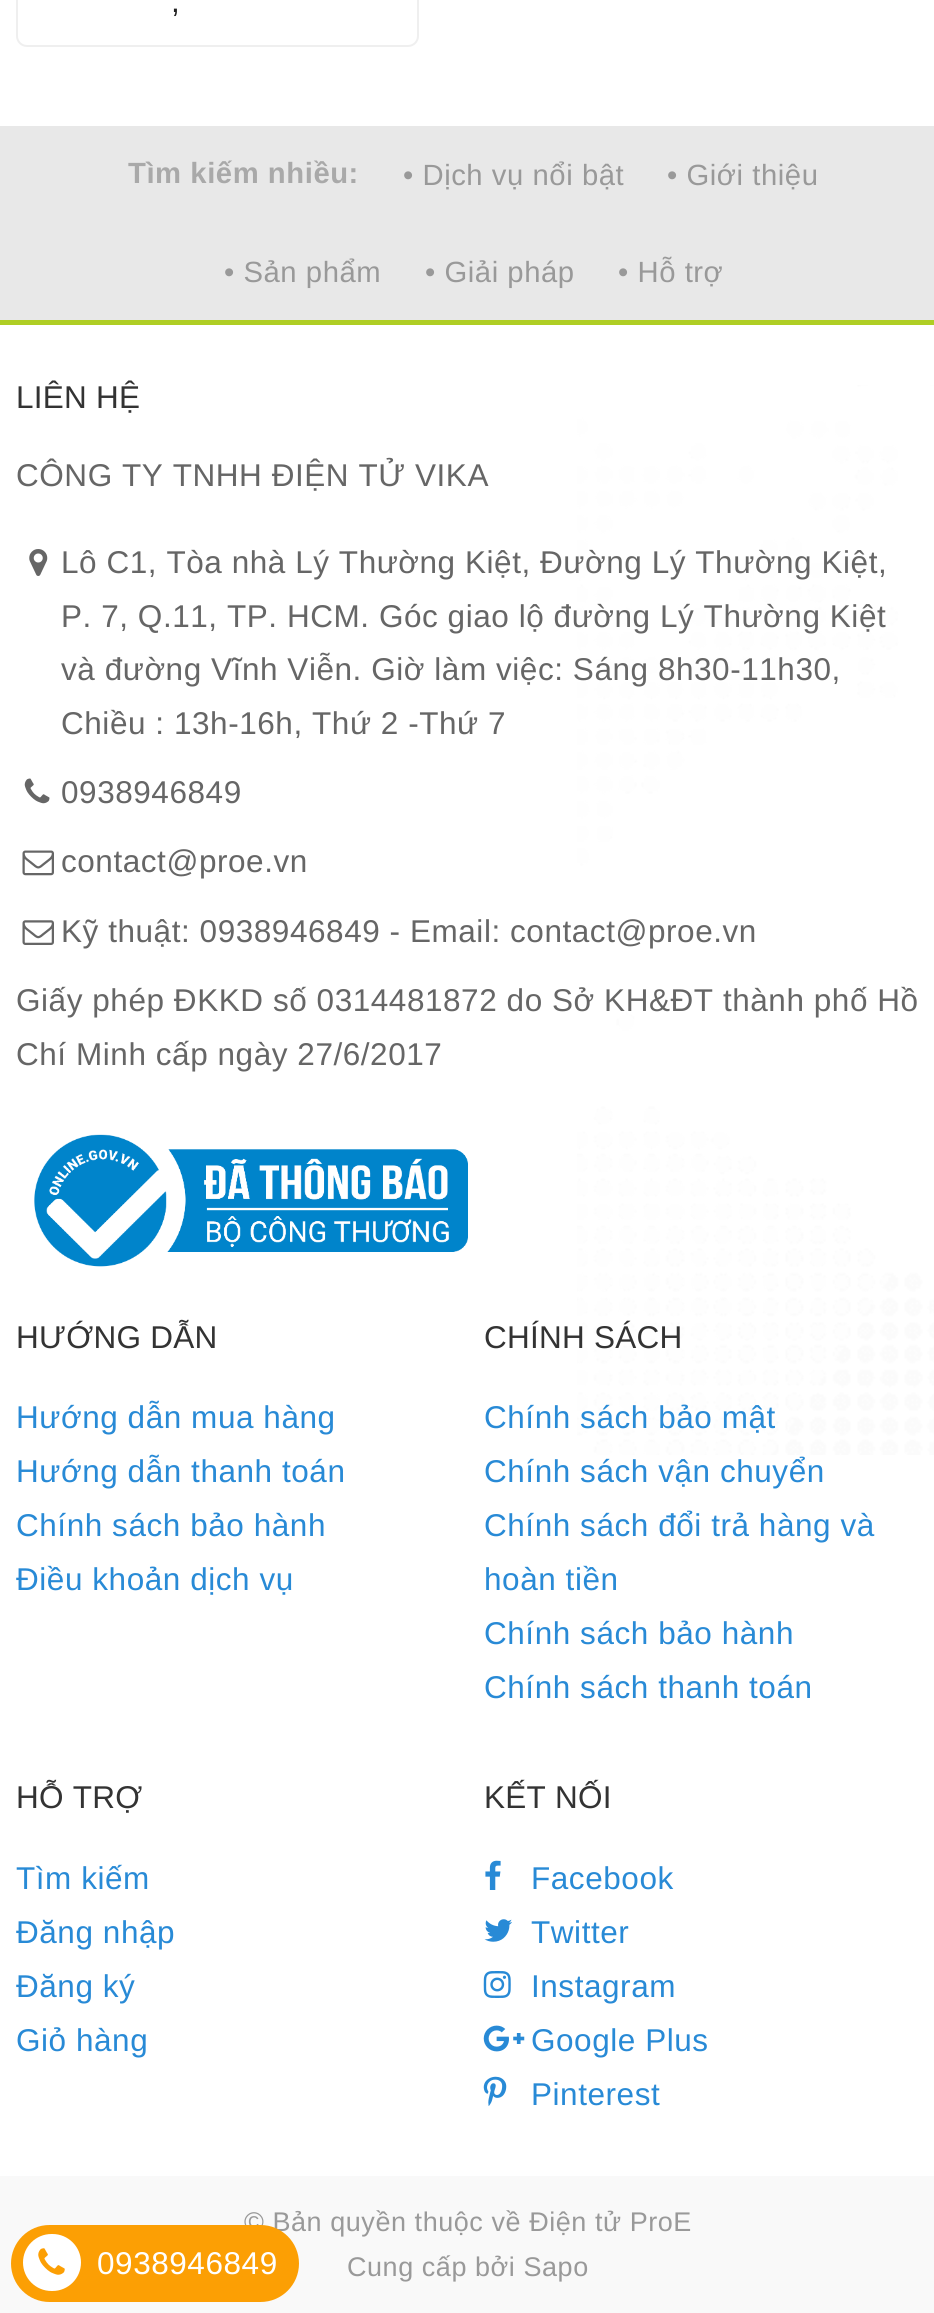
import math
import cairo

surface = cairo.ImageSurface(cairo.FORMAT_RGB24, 934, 2313)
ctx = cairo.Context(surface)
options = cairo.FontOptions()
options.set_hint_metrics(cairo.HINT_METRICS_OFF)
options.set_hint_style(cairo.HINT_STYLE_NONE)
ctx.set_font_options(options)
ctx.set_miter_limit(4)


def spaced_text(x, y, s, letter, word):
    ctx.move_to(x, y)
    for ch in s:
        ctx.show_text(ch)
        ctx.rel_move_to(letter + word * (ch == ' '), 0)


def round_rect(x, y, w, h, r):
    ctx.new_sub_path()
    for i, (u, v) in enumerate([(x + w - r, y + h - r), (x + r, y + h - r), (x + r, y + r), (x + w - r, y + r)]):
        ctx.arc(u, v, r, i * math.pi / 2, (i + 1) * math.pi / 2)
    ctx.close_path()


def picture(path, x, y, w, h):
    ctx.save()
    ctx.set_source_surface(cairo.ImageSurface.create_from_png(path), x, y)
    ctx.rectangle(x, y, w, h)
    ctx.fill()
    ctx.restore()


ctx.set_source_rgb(1, 1, 1)
ctx.paint()
round_rect(17, -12, 401, 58, 10)
ctx.set_source_rgb(0.937, 0.937, 0.937)
ctx.stroke()
ctx.select_font_face("Liberation Sans")
ctx.set_font_size(31.5)
ctx.set_source_rgb(0.133, 0.133, 0.133)
spaced_text(171, 12, ",", 0.55, 0)
ctx.set_source_rgb(0.91, 0.91, 0.91)
ctx.rectangle(0, 126, 934, 194)
ctx.fill()
ctx.select_font_face("Liberation Sans", cairo.FONT_SLANT_NORMAL, cairo.FONT_WEIGHT_BOLD)
ctx.set_font_size(29.25)
ctx.set_source_rgb(0.663, 0.663, 0.663)
spaced_text(128, 183, "Tìm kiếm nhiều:", 0.55, 0)
ctx.select_font_face("Liberation Sans")
ctx.set_source_rgb(0.6, 0.6, 0.6)
spaced_text(403, 185, "• Dịch vụ nổi bật", 0.55, 0)
spaced_text(667, 185, "• Giới thiệu", 0.55, 0)
spaced_text(224, 282, "• Sản phẩm", 0.55, 0)
spaced_text(425, 282, "• Giải pháp", 0.55, 0)
spaced_text(618, 282, "• Hỗ trợ", 0.55, 0)
picture("img1.png", 577, 385, 357, 1070)
ctx.set_source_rgb(0.686, 0.808, 0.141)
ctx.rectangle(0, 320, 934, 5)
ctx.fill()
ctx.set_font_size(31.5)
ctx.set_source_rgb(0.2, 0.2, 0.2)
spaced_text(16, 408, "LIÊN HỆ", 0.25, 0)
ctx.set_source_rgb(0.4, 0.4, 0.4)
spaced_text(16, 486, "CÔNG TY TNHH ĐIỆN TỬ VIKA", 0.55, 0)
picture("img2.png", 29, 549, 19, 27)
spaced_text(61, 573, "Lô C1, Tòa nhà Lý Thường Kiệt, Đường Lý Thường Kiệt,", 0.55, 0)
spaced_text(61, 627, "P. 7, Q.11, TP. HCM. Góc giao lộ đường Lý Thường Kiệt", 0.55, 0)
spaced_text(61, 680, "và đường Vĩnh Viễn. Giờ làm việc: Sáng 8h30-11h30,", 0.55, 0)
spaced_text(61, 734, "Chiều : 13h-16h, Thứ 2 -Thứ 7", 0.55, 0)
picture("img3.png", 24, 778, 26, 26)
spaced_text(61, 803, "0938946849", 0.55, 0)
picture("img4.png", 22, 850, 32, 26)
spaced_text(61, 872, "contact@proe.vn", 0.55, 0)
picture("img5.png", 22, 920, 32, 25)
spaced_text(61, 942, "Kỹ thuật: 0938946849 - Email: contact@proe.vn", 0.55, 0)
spaced_text(16, 1011, "Giấy phép ĐKKD số 0314481872 do Sở KH&ĐT thành phố Hồ", 0.55, 0)
spaced_text(16, 1065, "Chí Minh cấp ngày 27/6/2017", 0.55, 0)
picture("img6.png", 34, 1134, 434, 133)
ctx.set_source_rgb(0.2, 0.2, 0.2)
spaced_text(16, 1348, "HƯỚNG DẪN", 0.25, 0)
ctx.set_source_rgb(0.157, 0.541, 0.839)
spaced_text(16, 1428, "Hướng dẫn mua hàng", 0.55, 0)
spaced_text(16, 1482, "Hướng dẫn thanh toán", 0.55, 0)
spaced_text(16, 1536, "Chính sách bảo hành", 0.55, 0)
spaced_text(16, 1590, "Điều khoản dịch vụ", 0.55, 0)
ctx.set_source_rgb(0.2, 0.2, 0.2)
spaced_text(484, 1348, "CHÍNH SÁCH", 0.25, 0)
ctx.set_source_rgb(0.157, 0.541, 0.839)
spaced_text(484, 1428, "Chính sách bảo mật", 0.55, 0)
spaced_text(484, 1482, "Chính sách vận chuyển", 0.55, 0)
spaced_text(484, 1536, "Chính sách đổi trả hàng và", 0.55, 0)
spaced_text(484, 1590, "hoàn tiền", 0.55, 0)
spaced_text(484, 1644, "Chính sách bảo hành", 0.55, 0)
spaced_text(484, 1698, "Chính sách thanh toán", 0.55, 0)
ctx.set_source_rgb(0.2, 0.2, 0.2)
spaced_text(16, 1808, "HỖ TRỢ", 0.25, 0)
ctx.set_source_rgb(0.157, 0.541, 0.839)
spaced_text(16, 1889, "Tìm kiếm", 0.55, 0)
spaced_text(16, 1943, "Đăng nhập", 0.55, 0)
spaced_text(16, 1997, "Đăng ký", 0.55, 0)
spaced_text(16, 2051, "Giỏ hàng", 0.55, 0)
ctx.set_source_rgb(0.2, 0.2, 0.2)
spaced_text(484, 1808, "KẾT NỐI", 0.25, 0)
picture("img7.png", 485, 1860, 16, 30)
ctx.set_source_rgb(0.157, 0.541, 0.839)
spaced_text(531, 1889, "Facebook", 0.55, 0)
picture("img8.png", 484, 1919, 28, 23)
spaced_text(531, 1943, "Twitter", 0.55, 0)
picture("img9.png", 483, 1971, 28, 27)
spaced_text(531, 1997, "Instagram", 0.55, 0)
picture("img10.png", 483, 2025, 42, 27)
spaced_text(531, 2051, "Google Plus", 0.55, 0)
picture("img11.png", 483, 2076, 24, 30)
spaced_text(531, 2105, "Pinterest", 0.55, 0)
ctx.set_source_rgb(0.973, 0.973, 0.973)
ctx.rectangle(0, 2176, 934, 137)
ctx.fill()
ctx.set_font_size(27)
ctx.set_source_rgb(0.6, 0.6, 0.6)
spaced_text(244, 2231, "© Bản quyền thuộc về Điện tử ProE", 0.55, 0)
spaced_text(347, 2276, "Cung cấp bởi Sapo", 0.55, 0)
ctx.set_source_rgb(0.988, 0.624, 0.016)
round_rect(11, 2225, 288, 77, 38.5)
ctx.fill()
ctx.set_source_rgb(1, 1, 1)
round_rect(23, 2234, 58, 57, 28.5)
ctx.fill()
picture("img12.png", 38, 2248, 27, 27)
ctx.set_font_size(31.5)
spaced_text(97, 2274, "0938946849", 0.55, 0)
surface.write_to_png("page.png")
